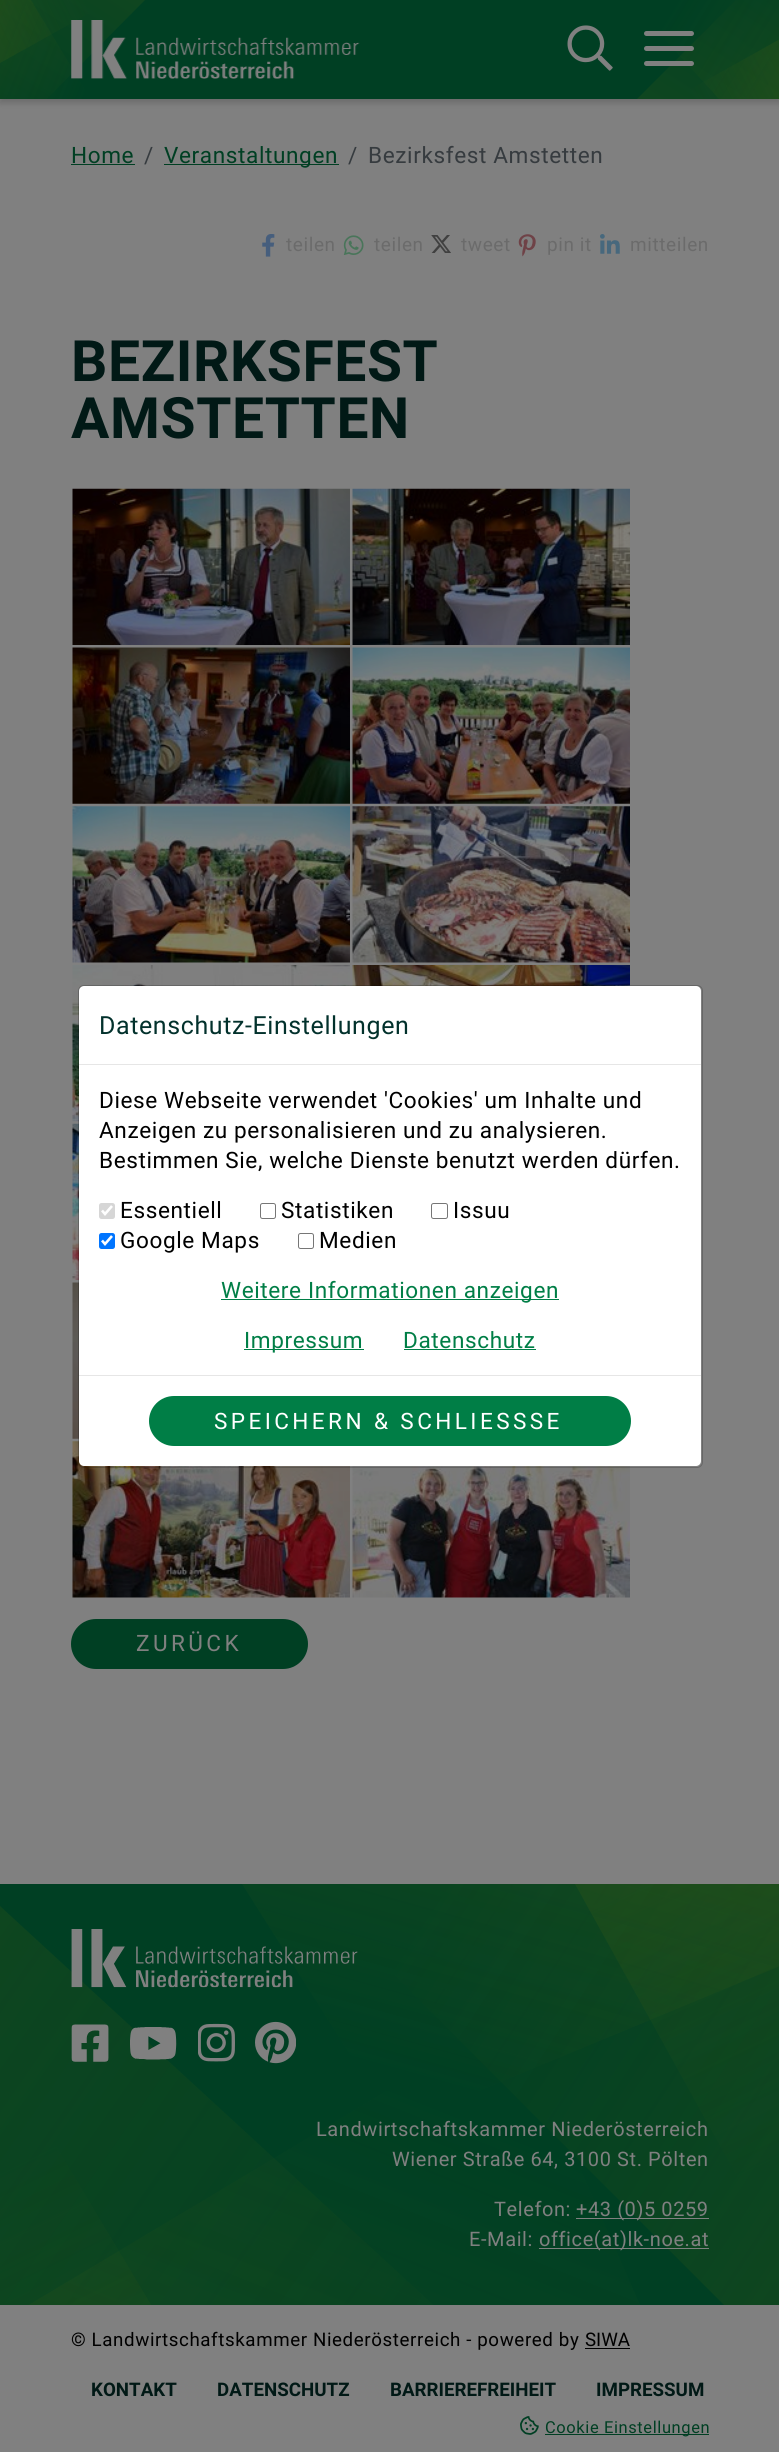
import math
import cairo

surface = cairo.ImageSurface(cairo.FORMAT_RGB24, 779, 2452)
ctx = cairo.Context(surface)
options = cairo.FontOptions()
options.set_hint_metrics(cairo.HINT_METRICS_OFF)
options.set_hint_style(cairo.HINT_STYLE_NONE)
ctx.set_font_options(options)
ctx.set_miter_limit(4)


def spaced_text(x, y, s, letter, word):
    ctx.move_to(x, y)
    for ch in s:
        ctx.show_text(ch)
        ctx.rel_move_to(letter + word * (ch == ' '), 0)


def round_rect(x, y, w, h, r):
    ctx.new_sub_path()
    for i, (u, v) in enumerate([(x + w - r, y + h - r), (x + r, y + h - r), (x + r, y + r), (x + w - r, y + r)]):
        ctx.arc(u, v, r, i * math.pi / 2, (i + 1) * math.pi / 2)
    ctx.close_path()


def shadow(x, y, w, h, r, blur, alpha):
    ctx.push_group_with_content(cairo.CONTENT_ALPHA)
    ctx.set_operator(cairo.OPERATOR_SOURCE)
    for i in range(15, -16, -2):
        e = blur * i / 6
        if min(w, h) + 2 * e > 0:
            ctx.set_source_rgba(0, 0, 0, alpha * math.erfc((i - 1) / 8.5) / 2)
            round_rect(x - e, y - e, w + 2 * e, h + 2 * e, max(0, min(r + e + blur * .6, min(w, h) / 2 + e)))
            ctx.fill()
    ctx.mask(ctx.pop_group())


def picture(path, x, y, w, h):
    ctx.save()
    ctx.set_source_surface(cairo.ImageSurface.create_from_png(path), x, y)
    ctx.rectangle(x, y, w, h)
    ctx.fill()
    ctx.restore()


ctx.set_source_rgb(0.502, 0.502, 0.502)
ctx.paint()
ctx.set_source_rgb(0, 0, 0)
shadow(0, 4, 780, 99, 0, 3, 0.16)
ctx.set_source_rgb(0, 0.247, 0.137)
ctx.rectangle(46, 0, 690, 99)
ctx.fill()
ctx.save()
ctx.rectangle(0, 0, 174, 99)
ctx.clip()
gradient = cairo.LinearGradient(104, -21, 16, 115)
gradient.add_color_stop_rgba(0, 0.059, 0.275, 0.125, 1)
gradient.add_color_stop_rgba(1, 0, 0.247, 0.137, 1)
ctx.set_source(gradient)
ctx.new_path()
ctx.move_to(0, 0)
ctx.line_to(0, 146)
ctx.line_to(145, 0)
ctx.close_path()
ctx.fill()
ctx.restore()
gradient = cairo.LinearGradient(8, 60, 95, 19)
gradient.add_color_stop_rgba(0, 0.275, 0.373, 0.067, 0.21)
gradient.add_color_stop_rgba(1, 0.275, 0.373, 0.067, 0)
ctx.set_source(gradient)
ctx.new_path()
ctx.move_to(0, 0)
ctx.line_to(0, 63)
ctx.line_to(113, 0)
ctx.close_path()
ctx.fill()
ctx.save()
ctx.rectangle(0, 0, 174, 99)
ctx.clip()
gradient = cairo.LinearGradient(-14, 1.8, 105, 49)
gradient.add_color_stop_rgba(0, 0.275, 0.373, 0.067, 0.21)
gradient.add_color_stop_rgba(1, 0.275, 0.373, 0.067, 0)
ctx.set_source(gradient)
ctx.new_path()
ctx.move_to(0, 0)
ctx.line_to(31, 0)
ctx.line_to(101, 116)
ctx.line_to(30, 148)
ctx.line_to(0, 148)
ctx.close_path()
ctx.fill()
ctx.restore()
gradient = cairo.LinearGradient(676, 124, 765, -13)
gradient.add_color_stop_rgba(0, 0.059, 0.275, 0.125, 1)
gradient.add_color_stop_rgba(1, 0, 0.247, 0.137, 1)
ctx.set_source(gradient)
ctx.new_path()
ctx.move_to(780, -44)
ctx.line_to(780, 99)
ctx.line_to(637, 99)
ctx.close_path()
ctx.fill()
gradient = cairo.LinearGradient(772, 42, 685, 84)
gradient.add_color_stop_rgba(0, 0.275, 0.373, 0.067, 0.21)
gradient.add_color_stop_rgba(1, 0.275, 0.373, 0.067, 0)
ctx.set_source(gradient)
ctx.new_path()
ctx.move_to(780, 39)
ctx.line_to(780, 99)
ctx.line_to(673, 99)
ctx.close_path()
ctx.fill()
gradient = cairo.LinearGradient(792, 111, 658, 28)
gradient.add_color_stop_rgba(0, 0.275, 0.373, 0.067, 0.21)
gradient.add_color_stop_rgba(1, 0.275, 0.373, 0.067, 0)
ctx.set_source(gradient)
ctx.new_path()
ctx.move_to(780, -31)
ctx.line_to(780, 99)
ctx.line_to(719, 99)
ctx.line_to(638, 10)
ctx.close_path()
ctx.fill()
picture("img1.png", 71, 20, 289, 59)
picture("img2.png", 567, 25, 46, 46)
ctx.set_source_rgb(0.502, 0.502, 0.502)
round_rect(644, 31, 50, 5, 2.5)
ctx.fill()
round_rect(644, 46, 50, 5, 2.5)
ctx.fill()
round_rect(644, 61, 50, 5, 2.5)
ctx.fill()
ctx.select_font_face("Roboto")
ctx.set_font_size(22.6)
ctx.set_source_rgb(0, 0.247, 0.137)
spaced_text(71, 163, "Home", 0.6, 0)
ctx.rectangle(71, 164, 64, 1)
ctx.fill()
ctx.set_source_rgb(0.212, 0.231, 0.247)
spaced_text(144, 163, "/", 0.6, 0)
ctx.set_source_rgb(0, 0.247, 0.137)
ctx.rectangle(164, 164, 175, 1)
ctx.fill()
spaced_text(164, 163, "Veranstaltungen", 0.6, 0)
ctx.set_source_rgb(0.212, 0.231, 0.247)
spaced_text(348, 163, "/", 0.6, 0)
spaced_text(368, 163, "Bezirksfest Amstetten", 0.6, 0)
picture("img3.png", 262, 234, 13, 23)
ctx.set_font_size(19)
ctx.set_source_rgb(0.42, 0.42, 0.42)
spaced_text(286, 251, "teilen", 0.6, 0)
picture("img4.png", 343, 235, 21, 20)
spaced_text(374, 251, "teilen", 0.6, 0)
picture("img5.png", 431, 235, 20, 18)
spaced_text(461, 251, "tweet", 0.6, 0)
picture("img6.png", 518, 234, 18, 23)
spaced_text(547, 251, "pin it", 0.6, 0)
picture("img7.png", 600, 234, 20, 20)
spaced_text(630, 251, "mitteilen", 0.6, 0)
ctx.select_font_face("Roboto", cairo.FONT_SLANT_NORMAL, cairo.FONT_WEIGHT_BOLD)
ctx.set_font_size(57)
ctx.set_source_rgb(0.004, 0.098, 0.086)
spaced_text(71, 381, "BEZIRKSFEST", 0.6, 0)
spaced_text(71, 438, "AMSTETTEN", 0.6, 0)
picture("img8.png", 72, 488, 278, 157)
picture("img9.png", 352, 488, 278, 157)
picture("img10.png", 72, 647, 278, 157)
picture("img11.png", 352, 647, 278, 157)
picture("img12.png", 72, 806, 278, 157)
picture("img13.png", 352, 806, 278, 157)
picture("img14.png", 72, 965, 278, 157)
picture("img15.png", 352, 965, 278, 21)
picture("img16.png", 72, 1123, 7, 157)
picture("img17.png", 72, 1282, 7, 157)
picture("img18.png", 72, 1441, 278, 157)
picture("img19.png", 352, 1466, 278, 132)
ctx.set_source_rgb(0, 0.247, 0.137)
round_rect(72.5, 1620.5, 234, 47, 23.5)
ctx.fill_preserve()
ctx.set_line_width(3)
ctx.stroke()
ctx.select_font_face("Roboto")
ctx.set_font_size(22.6)
ctx.set_source_rgb(0.502, 0.502, 0.502)
spaced_text(136, 1651, "ZURÜCK", 3.4, 0)
ctx.set_source_rgb(0, 0.247, 0.137)
ctx.rectangle(0, 1884, 779, 421)
ctx.fill()
gradient = cairo.LinearGradient(-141, 2042, 479, 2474)
gradient.add_color_stop_rgba(0, 0.275, 0.373, 0.067, 0.21)
gradient.add_color_stop_rgba(1, 0.275, 0.373, 0.067, 0)
ctx.set_source(gradient)
ctx.new_path()
ctx.move_to(515, 2380)
ctx.line_to(0, 2380)
ctx.line_to(0, 1906)
ctx.close_path()
ctx.fill()
gradient = cairo.LinearGradient(290, 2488, 105, 2111)
gradient.add_color_stop_rgba(0, 0.275, 0.373, 0.067, 0.21)
gradient.add_color_stop_rgba(1, 0.275, 0.373, 0.067, 0)
ctx.set_source(gradient)
ctx.new_path()
ctx.move_to(196, 2380)
ctx.line_to(0, 2380)
ctx.line_to(0, 2052)
ctx.close_path()
ctx.fill()
gradient = cairo.LinearGradient(-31, 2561, 194, 1997)
gradient.add_color_stop_rgba(0, 0.275, 0.373, 0.067, 0.21)
gradient.add_color_stop_rgba(1, 0.275, 0.373, 0.067, 0)
ctx.set_source(gradient)
ctx.new_path()
ctx.move_to(673, 2380)
ctx.line_to(0, 2380)
ctx.line_to(0, 2322)
ctx.line_to(513, 2015)
ctx.close_path()
ctx.fill()
gradient = cairo.LinearGradient(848, 2225, 402, 1934)
gradient.add_color_stop_rgba(0, 0.275, 0.373, 0.067, 0.21)
gradient.add_color_stop_rgba(1, 0.275, 0.373, 0.067, 0)
ctx.set_source(gradient)
ctx.new_path()
ctx.move_to(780, 1884)
ctx.line_to(303, 1884)
ctx.line_to(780, 2361)
ctx.close_path()
ctx.fill()
gradient = cairo.LinearGradient(583, 1910, 718, 2194)
gradient.add_color_stop_rgba(0, 0.275, 0.373, 0.067, 0.21)
gradient.add_color_stop_rgba(1, 0.275, 0.373, 0.067, 0)
ctx.set_source(gradient)
ctx.new_path()
ctx.move_to(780, 1884)
ctx.line_to(575, 1884)
ctx.line_to(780, 2254)
ctx.close_path()
ctx.fill()
gradient = cairo.LinearGradient(761, 1871, 682, 2155)
gradient.add_color_stop_rgba(0, 0.275, 0.373, 0.067, 0.21)
gradient.add_color_stop_rgba(1, 0.275, 0.373, 0.067, 0)
ctx.set_source(gradient)
ctx.new_path()
ctx.move_to(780, 1884)
ctx.line_to(242, 1884)
ctx.line_to(395, 2126)
ctx.line_to(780, 1966)
ctx.close_path()
ctx.fill()
picture("img20.png", 71, 1929, 287, 59)
picture("img21.png", 71, 2024, 38, 38)
picture("img22.png", 130, 2027, 47, 33)
picture("img23.png", 198, 2023, 37, 39)
picture("img24.png", 255, 2021, 41, 43)
ctx.set_font_size(20)
ctx.set_source_rgb(0.502, 0.502, 0.502)
spaced_text(316, 2136, "Landwirtschaftskammer Niederösterreich", 0.6, 0)
spaced_text(392, 2166, "Wiener Straße 64, 3100 St. Pölten", 0.6, 0)
spaced_text(494, 2216, "Telefon:", 0.6, 0)
ctx.rectangle(576, 2218, 133, 1)
ctx.fill()
spaced_text(576, 2216, "+43 (0)5 0259", 0.6, 0)
spaced_text(469, 2246, "E-Mail:", 0.6, 0)
ctx.rectangle(539, 2248, 170, 1)
ctx.fill()
spaced_text(539, 2246, "office(at)lk-noe.at", 0.6, 0)
ctx.rectangle(0, 2305, 779, 75)
ctx.fill()
ctx.set_font_size(18.75)
ctx.set_source_rgb(0, 0, 0)
spaced_text(71, 2346, "© Landwirtschaftskammer Niederösterreich - powered by", 0.6, 0)
ctx.move_to(585, 2346)
ctx.show_text("SIWA")
ctx.rectangle(585, 2348, 45, 1)
ctx.fill()
ctx.select_font_face("Roboto", cairo.FONT_SLANT_NORMAL, cairo.FONT_WEIGHT_BOLD)
ctx.set_source_rgb(0.004, 0.098, 0.086)
ctx.move_to(91, 2396)
ctx.show_text("KONTAKT")
ctx.move_to(217, 2396)
ctx.show_text("DATENSCHUTZ")
ctx.move_to(390, 2396)
ctx.show_text("BARRIEREFREIHEIT")
ctx.move_to(596, 2396)
ctx.show_text("IMPRESSUM")
picture("img25.png", 520, 2416, 19, 19)
ctx.set_source_rgb(0, 0.247, 0.137)
ctx.rectangle(545, 2434, 164, 1)
ctx.fill()
ctx.select_font_face("Roboto")
ctx.set_font_size(16.5)
spaced_text(545, 2433, "Cookie Einstellungen", 0.6, 0)
ctx.set_source_rgb(1, 1, 1)
round_rect(79, 986, 622, 480, 5)
ctx.fill()
round_rect(78.5, 985.5, 624, 482, 5.5)
ctx.set_source_rgba(0, 0, 0, 0.2)
ctx.set_line_width(1)
ctx.stroke()
ctx.set_source_rgb(0.902, 0.902, 0.902)
ctx.rectangle(79, 1064, 622, 1)
ctx.fill()
ctx.set_font_size(25)
ctx.set_source_rgb(0.008, 0.192, 0.173)
spaced_text(99, 1034, "Datenschutz-Einstellungen", 0.6, 0)
ctx.set_font_size(22.6)
ctx.set_source_rgb(0, 0, 0)
spaced_text(99, 1108, "Diese Webseite verwendet 'Cookies' um Inhalte und", 0.6, 0)
spaced_text(99, 1138, "Anzeigen zu personalisieren und zu analysieren.", 0.6, 0)
spaced_text(99, 1168, "Bestimmen Sie, welche Dienste benutzt werden dürfen.", 0.6, 0)
ctx.set_source_rgb(0.839, 0.839, 0.839)
round_rect(99, 1203, 16, 16, 2.5)
ctx.fill()
ctx.new_path()
ctx.move_to(102, 1210.5)
ctx.line_to(105, 1214)
ctx.line_to(112, 1206)
ctx.set_source_rgb(1, 1, 1)
ctx.set_line_width(2.6)
ctx.stroke()
ctx.set_source_rgb(0, 0, 0)
spaced_text(120, 1218, "Essentiell", 0.6, 0)
round_rect(260.5, 1203.5, 15, 15, 2)
ctx.set_source_rgb(0.463, 0.463, 0.463)
ctx.set_line_width(1)
ctx.stroke()
ctx.set_source_rgb(0, 0, 0)
spaced_text(281, 1218, "Statistiken", 0.6, 0)
round_rect(431.5, 1203.5, 16, 15, 2)
ctx.set_source_rgb(0.463, 0.463, 0.463)
ctx.stroke()
ctx.set_source_rgb(0, 0, 0)
spaced_text(453, 1218, "Issuu", 0.6, 0)
ctx.set_source_rgb(0, 0.459, 1)
round_rect(99, 1233, 16, 16, 2.5)
ctx.fill()
ctx.new_path()
ctx.move_to(102, 1240.5)
ctx.line_to(105, 1244)
ctx.line_to(112, 1236)
ctx.set_source_rgb(1, 1, 1)
ctx.set_line_width(2.6)
ctx.stroke()
ctx.set_source_rgb(0, 0, 0)
spaced_text(120, 1248, "Google Maps", 0.6, 0)
round_rect(298.5, 1233.5, 15, 15, 2)
ctx.set_source_rgb(0.463, 0.463, 0.463)
ctx.set_line_width(1)
ctx.stroke()
ctx.set_source_rgb(0, 0, 0)
spaced_text(319, 1248, "Medien", 0.6, 0)
ctx.set_source_rgb(0, 0.494, 0.275)
ctx.rectangle(221, 1299, 338, 1)
ctx.fill()
spaced_text(221, 1298, "Weitere Informationen anzeigen", 0.6, 0)
ctx.rectangle(244, 1349, 120, 1)
ctx.fill()
spaced_text(244, 1348, "Impressum", 0.6, 0)
spaced_text(403, 1348, "Datenschutz", 0.6, 0)
ctx.rectangle(404, 1349, 132, 1)
ctx.fill()
ctx.set_source_rgb(0.902, 0.902, 0.902)
ctx.rectangle(79, 1375, 622, 1)
ctx.fill()
ctx.set_source_rgb(0, 0.494, 0.275)
round_rect(150.5, 1397.5, 479, 47, 23.5)
ctx.fill_preserve()
ctx.set_line_width(3)
ctx.stroke()
ctx.set_source_rgb(1, 1, 1)
spaced_text(214, 1429, "SPEICHERN & SCHLIESSSE", 3.4, 0)
surface.write_to_png("page.png")
